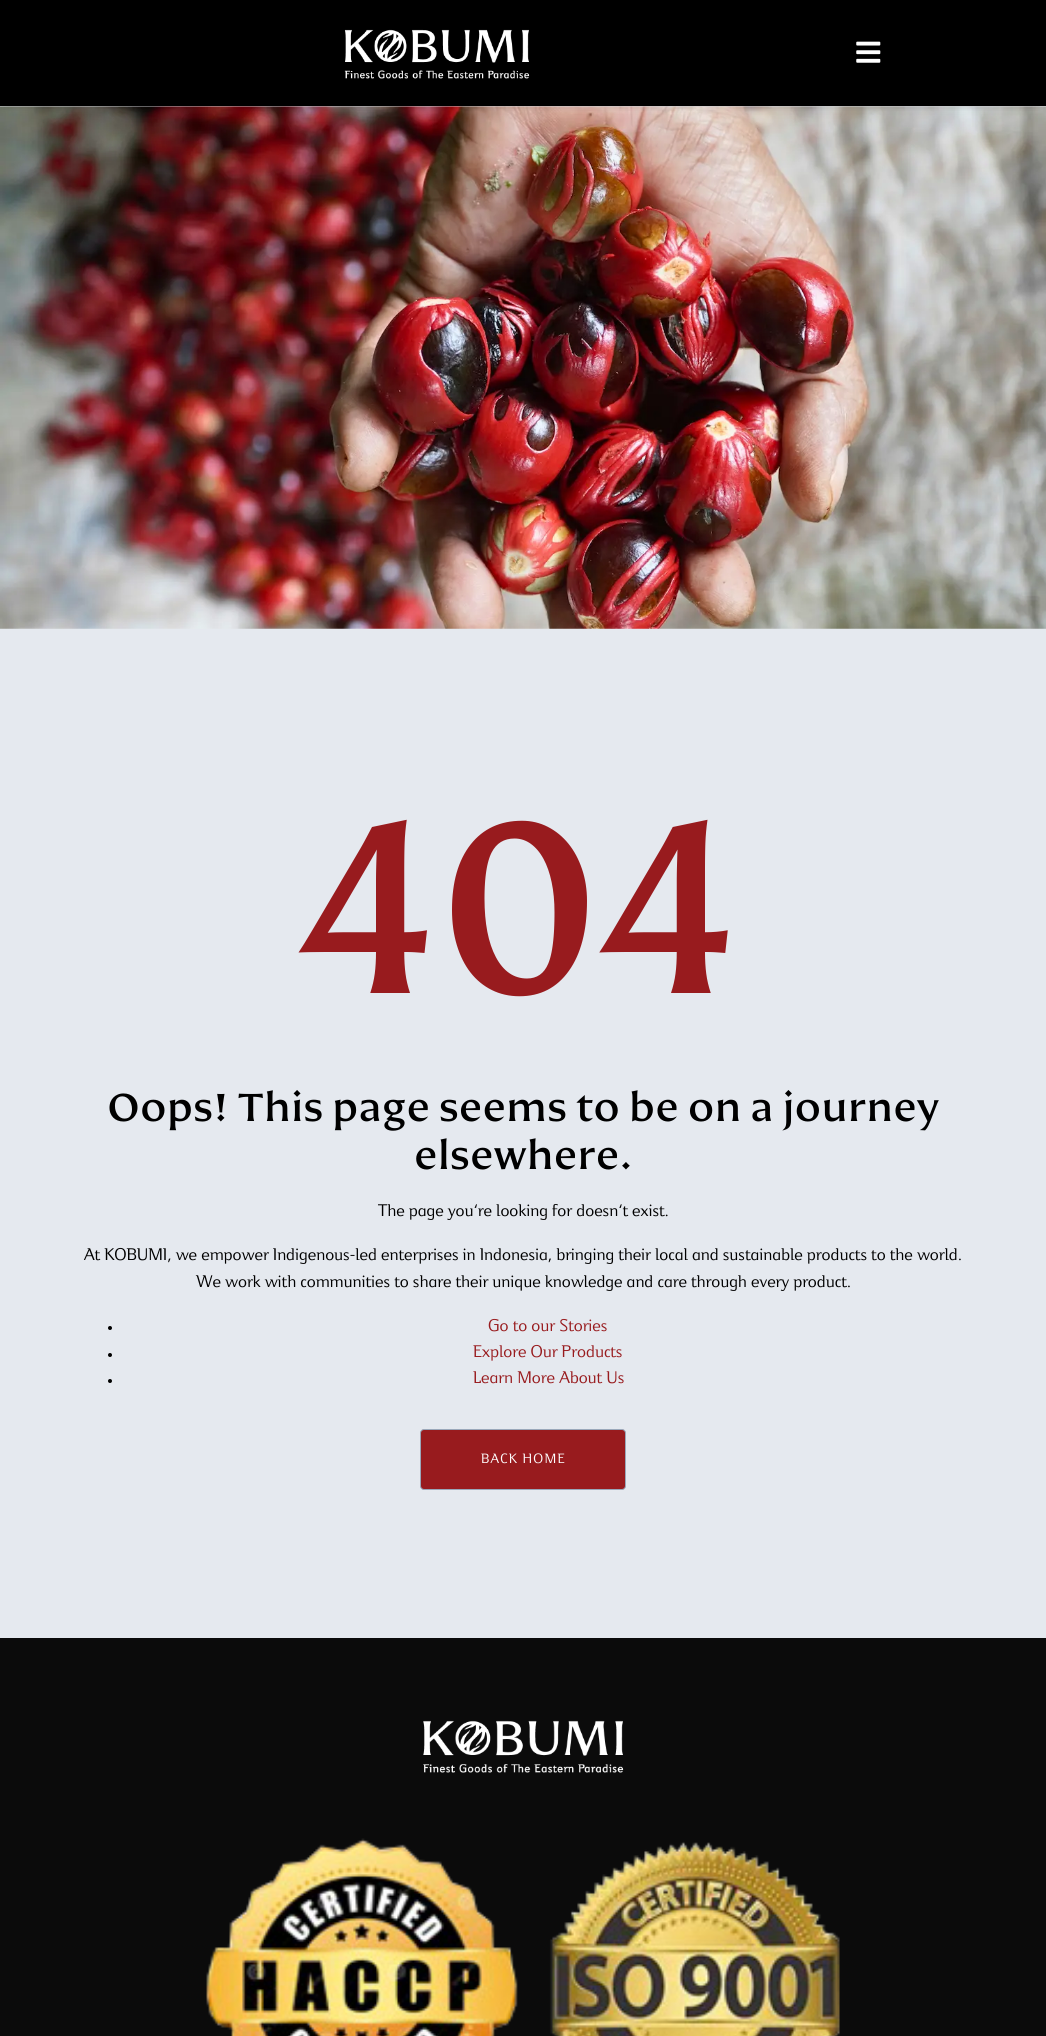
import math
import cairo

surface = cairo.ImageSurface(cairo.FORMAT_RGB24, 1046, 2036)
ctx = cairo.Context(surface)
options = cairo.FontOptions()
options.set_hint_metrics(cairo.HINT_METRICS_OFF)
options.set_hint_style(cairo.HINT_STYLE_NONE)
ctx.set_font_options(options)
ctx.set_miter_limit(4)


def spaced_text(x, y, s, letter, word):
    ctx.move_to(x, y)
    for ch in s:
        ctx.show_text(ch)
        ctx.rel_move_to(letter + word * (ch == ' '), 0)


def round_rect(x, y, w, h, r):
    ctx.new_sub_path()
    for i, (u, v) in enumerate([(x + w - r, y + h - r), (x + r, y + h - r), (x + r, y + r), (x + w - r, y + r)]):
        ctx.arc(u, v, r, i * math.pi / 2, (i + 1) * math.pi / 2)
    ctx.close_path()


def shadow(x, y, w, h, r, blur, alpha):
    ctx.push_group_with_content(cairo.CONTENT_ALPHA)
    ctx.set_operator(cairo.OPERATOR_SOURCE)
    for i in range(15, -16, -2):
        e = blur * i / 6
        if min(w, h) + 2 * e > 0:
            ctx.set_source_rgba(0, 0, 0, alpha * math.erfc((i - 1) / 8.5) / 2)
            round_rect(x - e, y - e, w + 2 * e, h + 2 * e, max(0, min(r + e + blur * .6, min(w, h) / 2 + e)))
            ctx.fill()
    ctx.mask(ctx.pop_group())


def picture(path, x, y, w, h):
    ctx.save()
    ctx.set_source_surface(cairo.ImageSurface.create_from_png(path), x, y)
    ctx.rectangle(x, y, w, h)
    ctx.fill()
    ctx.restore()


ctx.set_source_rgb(0.898, 0.914, 0.937)
ctx.paint()
picture("img3.png", 0, 106, 1046, 523)
ctx.set_source_rgb(0, 0, 0)
shadow(6, 6, 1034, 94, 0, 6, 0.5)
ctx.set_source_rgb(0, 0, 0)
ctx.rectangle(0, 0, 1046, 106)
ctx.fill()
picture("img1.png", 344, 29, 186, 50)
picture("img2.png", 856, 41, 25, 22)
ctx.select_font_face("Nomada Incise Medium")
ctx.set_font_size(250)
ctx.set_source_rgb(0.596, 0.106, 0.118)
ctx.move_to(296, 993)
ctx.show_text("404")
ctx.set_font_size(40)
ctx.set_source_rgb(0, 0, 0)
ctx.move_to(107, 1121)
ctx.show_text("Oops! This page seems to be on a journey")
ctx.move_to(414, 1169)
ctx.show_text("elsewhere.")
ctx.select_font_face("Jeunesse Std")
ctx.set_font_size(18.75)
ctx.move_to(378, 1216)
ctx.show_text("The page you’re looking for doesn’t exist.")
ctx.move_to(84, 1260)
ctx.show_text("At KOBUMI, we empower Indigenous-led enterprises in Indonesia, bringing their local and sustainable products to the world.")
ctx.move_to(196, 1287)
ctx.show_text("We work with communities to share their unique knowledge and care through every product.")
ctx.new_path()
ctx.arc(110, 1328, 2, 0, 2 * math.pi)
ctx.fill()
ctx.set_source_rgb(0.596, 0.106, 0.118)
ctx.move_to(488, 1331)
ctx.show_text("Go to our Stories")
ctx.set_source_rgb(0, 0, 0)
ctx.new_path()
ctx.arc(110, 1355, 2, 0, 2 * math.pi)
ctx.fill()
ctx.set_source_rgb(0.596, 0.106, 0.118)
ctx.move_to(473, 1357)
ctx.show_text("Explore Our Products")
ctx.set_source_rgb(0, 0, 0)
ctx.new_path()
ctx.arc(110, 1381, 2, 0, 2 * math.pi)
ctx.fill()
ctx.set_source_rgb(0.596, 0.106, 0.118)
ctx.move_to(473, 1383)
ctx.show_text("Learn More About Us")
round_rect(420.5, 1429.5, 205, 60, 3.5)
ctx.fill_preserve()
ctx.set_source_rgb(0.604, 0.659, 0.729)
ctx.set_line_width(1)
ctx.stroke()
ctx.set_font_size(15)
ctx.set_source_rgb(1, 1, 1)
spaced_text(481, 1463, "BACK HOME", 1.25, 0)
ctx.set_source_rgb(0.043, 0.043, 0.043)
ctx.rectangle(0, 1638, 1046, 398)
ctx.fill()
picture("img4.png", 423, 1720, 201, 53)
picture("img5.png", 206, 1838, 634, 198)
surface.write_to_png("page.png")
